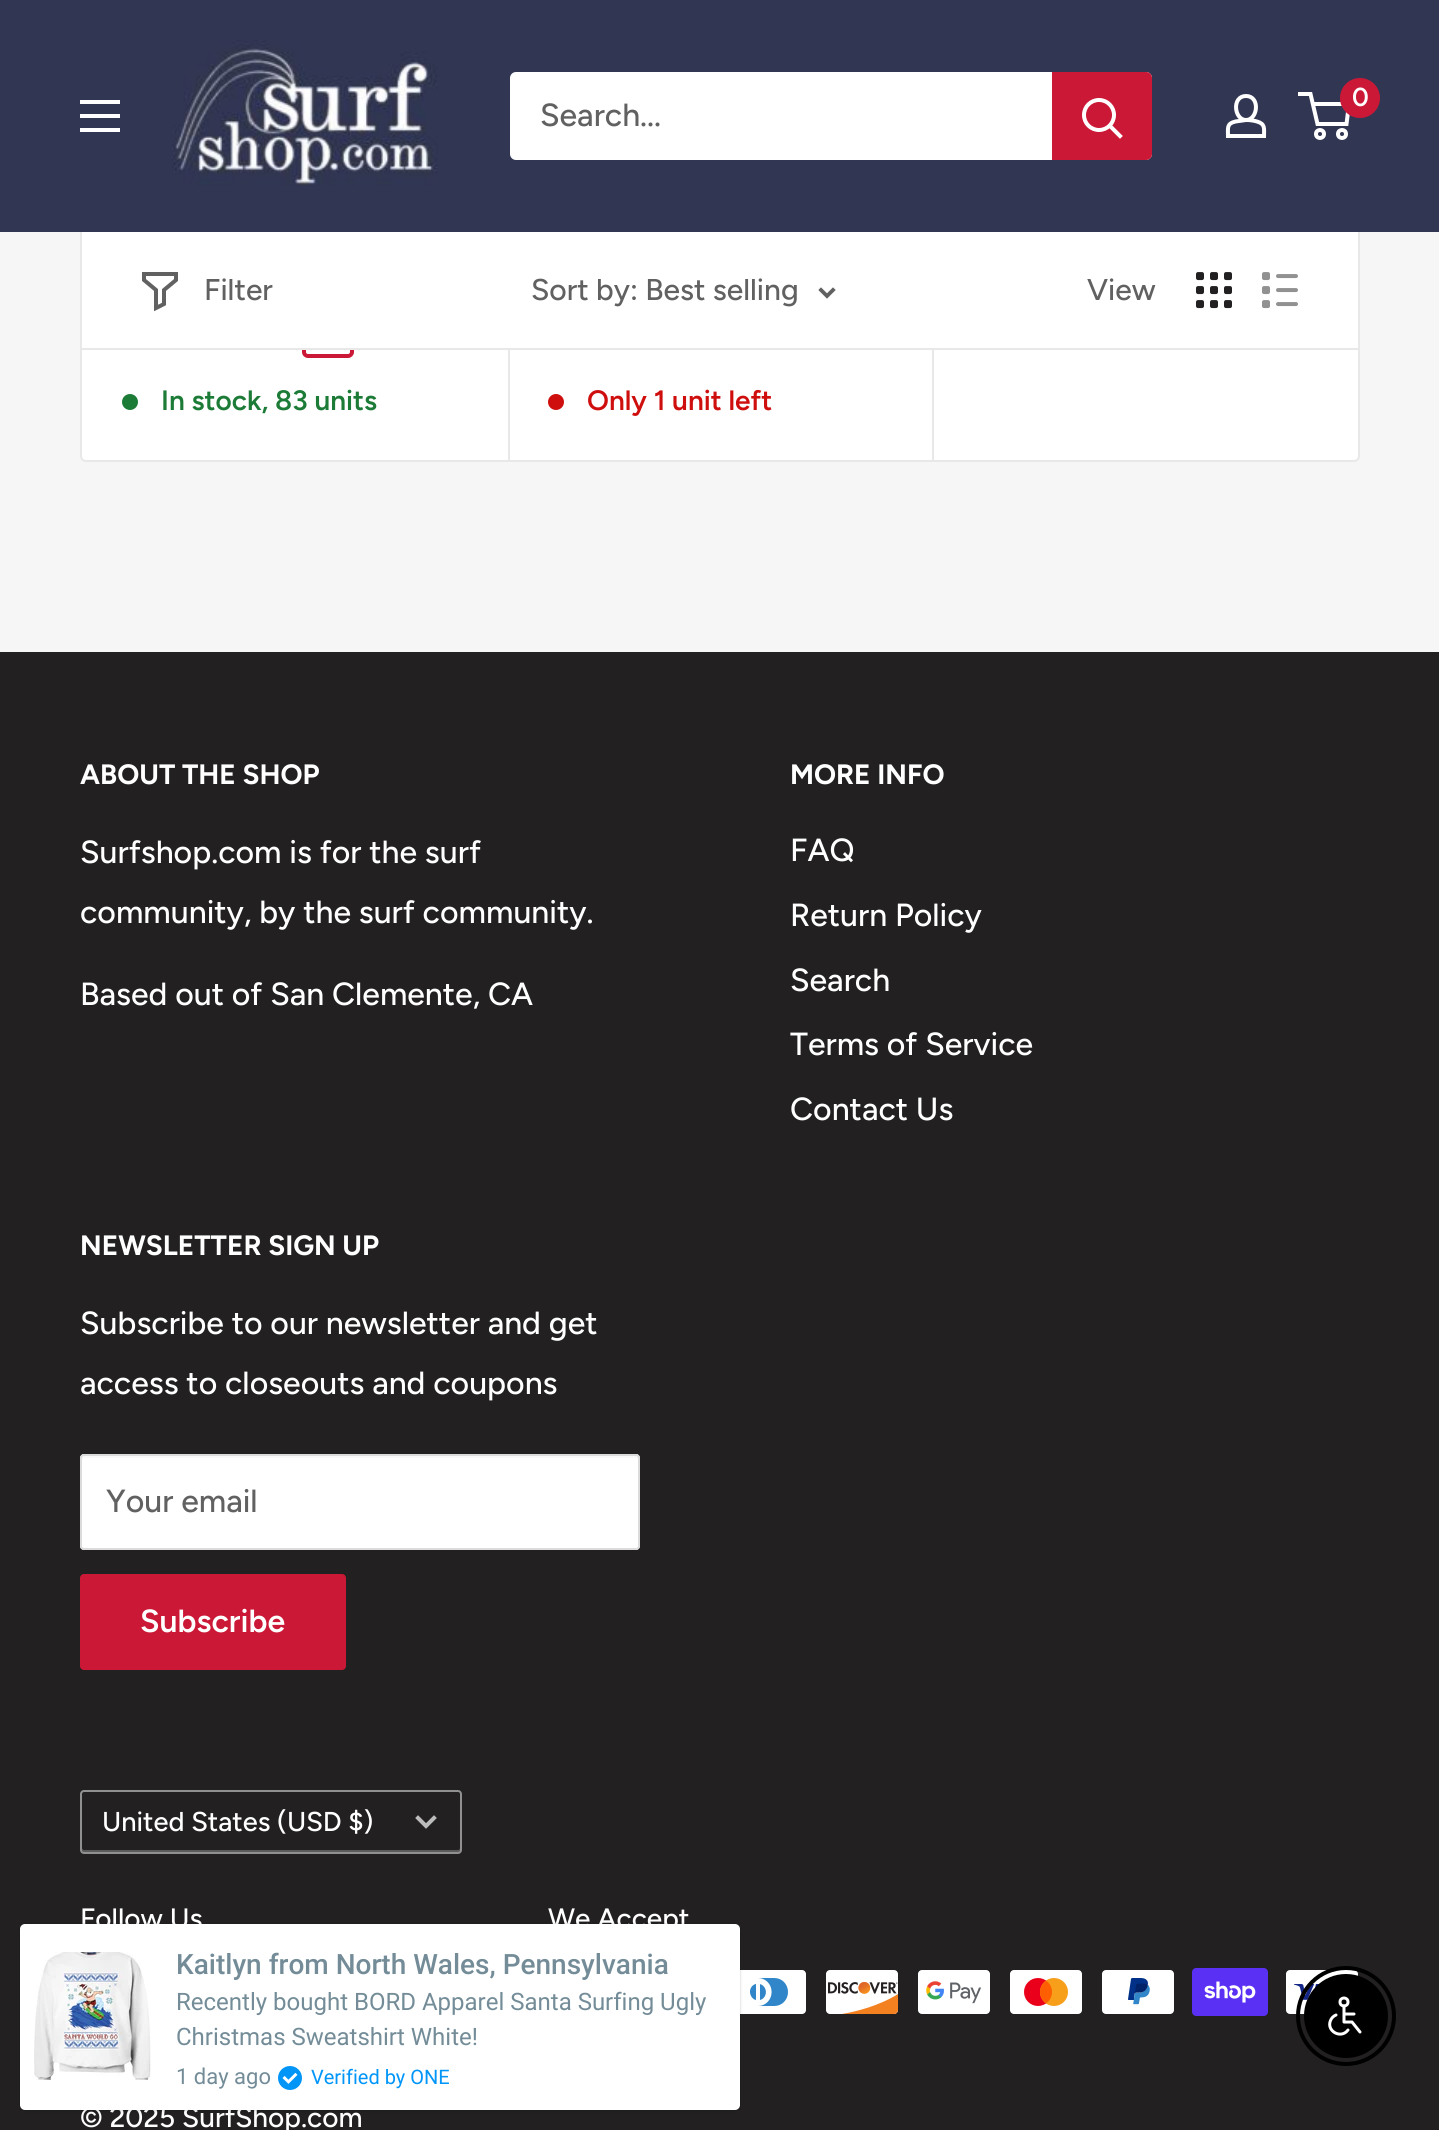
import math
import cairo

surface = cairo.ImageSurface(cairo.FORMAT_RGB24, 1439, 2130)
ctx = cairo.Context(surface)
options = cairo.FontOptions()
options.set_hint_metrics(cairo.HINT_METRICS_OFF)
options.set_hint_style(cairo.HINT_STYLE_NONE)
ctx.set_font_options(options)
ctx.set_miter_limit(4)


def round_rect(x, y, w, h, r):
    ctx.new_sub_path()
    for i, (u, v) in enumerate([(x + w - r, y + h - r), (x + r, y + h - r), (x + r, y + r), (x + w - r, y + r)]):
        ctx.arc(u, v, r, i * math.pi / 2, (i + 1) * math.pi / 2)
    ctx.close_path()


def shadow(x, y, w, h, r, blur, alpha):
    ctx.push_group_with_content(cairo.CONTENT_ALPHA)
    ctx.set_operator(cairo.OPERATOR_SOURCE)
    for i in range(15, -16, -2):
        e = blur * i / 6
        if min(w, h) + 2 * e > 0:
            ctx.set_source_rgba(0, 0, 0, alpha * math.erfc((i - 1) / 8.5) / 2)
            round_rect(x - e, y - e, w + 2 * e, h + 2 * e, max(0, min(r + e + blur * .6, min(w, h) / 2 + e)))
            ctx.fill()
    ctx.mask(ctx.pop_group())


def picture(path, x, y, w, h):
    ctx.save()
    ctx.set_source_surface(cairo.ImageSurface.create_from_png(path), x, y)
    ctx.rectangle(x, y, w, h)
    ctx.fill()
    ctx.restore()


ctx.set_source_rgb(0.961, 0.961, 0.961)
ctx.paint()
ctx.set_source_rgb(1, 1, 1)
round_rect(81, -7, 1278, 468, 5)
ctx.fill_preserve()
ctx.set_source_rgb(0.91, 0.91, 0.91)
ctx.stroke()
ctx.set_source_rgb(0.192, 0.212, 0.322)
ctx.rectangle(0, 0, 1439, 232)
ctx.fill()
picture("img1.png", 172, 40, 266, 146)
ctx.new_path()
ctx.move_to(1246, 120)
ctx.curve_to(1250, 120, 1253.5, 120.5, 1257, 121.5)
ctx.curve_to(1265.5, 124, 1264, 128.5, 1264, 136)
ctx.line_to(1228, 136)
ctx.curve_to(1228, 128, 1226.5, 123.5, 1235.5, 121.5)
ctx.close_path()
ctx.move_to(1246, 120)
ctx.curve_to(1234, 120, 1231.5, 96, 1246, 96)
ctx.curve_to(1260.5, 96, 1258, 120, 1246, 120)
ctx.close_path()
ctx.set_source_rgb(1, 1, 1)
ctx.set_line_width(4)
ctx.stroke()
ctx.arc(1320, 134, 4, 0, 2 * math.pi)
ctx.stroke()
ctx.arc(1342, 134, 4, 0, 2 * math.pi)
ctx.stroke()
ctx.new_path()
ctx.move_to(1312.5, 104)
ctx.line_to(1349, 104)
ctx.line_to(1346.5, 124)
ctx.line_to(1317.5, 124)
ctx.line_to(1310.5, 94)
ctx.line_to(1298, 94)
ctx.stroke()
ctx.set_source_rgb(0.796, 0.094, 0.212)
ctx.arc(1360, 98, 20, 0, 2 * math.pi)
ctx.fill()
ctx.select_font_face("Figtree SemiBold")
ctx.set_font_size(26)
ctx.set_source_rgb(1, 1, 1)
ctx.move_to(1352, 106)
ctx.show_text("0")
ctx.set_fill_rule(cairo.FILL_RULE_EVEN_ODD)
ctx.new_path()
ctx.move_to(80, 128)
ctx.line_to(120, 128)
ctx.line_to(120, 132)
ctx.line_to(80, 132)
ctx.close_path()
ctx.move_to(80, 100)
ctx.line_to(120, 100)
ctx.line_to(120, 104)
ctx.line_to(80, 104)
ctx.close_path()
ctx.move_to(80, 114)
ctx.line_to(120, 114)
ctx.line_to(120, 118)
ctx.line_to(80, 118)
ctx.close_path()
ctx.fill()
round_rect(510, 72, 642, 88, 6)
ctx.fill()
ctx.select_font_face("Figtree Medium")
ctx.set_font_size(32)
ctx.set_source_rgb(0.38, 0.38, 0.38)
ctx.move_to(540, 126)
ctx.show_text("Search...")
ctx.set_source_rgb(0.796, 0.094, 0.212)
ctx.new_path()
ctx.move_to(1052, 72)
ctx.line_to(1146, 72)
ctx.curve_to(1149.5, 72, 1152, 74.5, 1152, 78)
ctx.line_to(1152, 154)
ctx.curve_to(1152, 157.5, 1149.5, 160, 1146, 160)
ctx.line_to(1052, 160)
ctx.close_path()
ctx.fill()
ctx.new_path()
ctx.move_to(1120, 136)
ctx.line_to(1110, 126)
ctx.set_source_rgb(1, 1, 1)
ctx.set_line_cap(cairo.LINE_CAP_SQUARE)
ctx.stroke()
ctx.arc(1099, 115, 15, 0, 2 * math.pi)
ctx.set_line_cap(cairo.LINE_CAP_BUTT)
ctx.stroke()
round_rect(304, 308, 48, 48, 4)
ctx.set_source_rgb(0.796, 0.094, 0.212)
ctx.stroke()
ctx.set_source_rgb(0.91, 0.91, 0.91)
ctx.rectangle(82, 348, 1276, 2)
ctx.fill()
ctx.set_source_rgb(1, 1, 1)
ctx.rectangle(302, 306, 52, 42)
ctx.fill()
ctx.new_path()
ctx.move_to(176, 280)
ctx.line_to(164, 290)
ctx.line_to(164, 304)
ctx.line_to(156, 308)
ctx.line_to(156, 290)
ctx.line_to(144, 280)
ctx.line_to(144, 274)
ctx.line_to(176, 274)
ctx.close_path()
ctx.set_source_rgb(0.38, 0.38, 0.38)
ctx.set_line_cap(cairo.LINE_CAP_SQUARE)
ctx.stroke()
ctx.set_font_size(30)
ctx.move_to(204, 300)
ctx.show_text("Filter")
ctx.move_to(531, 300)
ctx.show_text("Sort by: Best selling")
ctx.new_path()
ctx.move_to(833, 290)
ctx.line_to(827, 296)
ctx.line_to(821, 290)
ctx.set_line_width(3.8)
ctx.stroke()
ctx.move_to(1087, 300)
ctx.show_text("View")
picture("img2.png", 1196, 272, 36, 37)
picture("img3.png", 1262, 272, 36, 37)
ctx.set_source_rgb(0.11, 0.482, 0.212)
ctx.arc(130, 402, 8, 0, 2 * math.pi)
ctx.fill()
ctx.select_font_face("Figtree SemiBold")
ctx.set_font_size(28)
ctx.move_to(161, 410)
ctx.show_text("In stock, 83 units")
ctx.set_source_rgb(0.91, 0.91, 0.91)
ctx.rectangle(508, 350, 2, 110)
ctx.fill()
ctx.set_source_rgb(0.812, 0.055, 0.055)
ctx.arc(556, 402, 8, 0, 2 * math.pi)
ctx.fill()
ctx.move_to(587, 410)
ctx.show_text("Only 1 unit left")
ctx.set_source_rgb(0.91, 0.91, 0.91)
ctx.rectangle(932, 350, 2, 110)
ctx.fill()
ctx.set_source_rgb(0.133, 0.125, 0.129)
ctx.rectangle(0, 652, 1439, 1478)
ctx.fill()
ctx.select_font_face("Figtree", cairo.FONT_SLANT_NORMAL, cairo.FONT_WEIGHT_BOLD)
ctx.set_source_rgb(1, 1, 1)
ctx.move_to(80, 784)
ctx.show_text("ABOUT THE SHOP")
ctx.select_font_face("Figtree Medium")
ctx.set_font_size(32)
ctx.move_to(80, 863)
ctx.show_text("Surfshop.com is for the surf")
ctx.move_to(80, 923)
ctx.show_text("community, by the surf community.")
ctx.move_to(80, 1005)
ctx.show_text("Based out of San Clemente, CA")
ctx.select_font_face("Figtree", cairo.FONT_SLANT_NORMAL, cairo.FONT_WEIGHT_BOLD)
ctx.set_font_size(28)
ctx.move_to(790, 784)
ctx.show_text("MORE INFO")
ctx.select_font_face("Figtree Medium")
ctx.set_font_size(32)
ctx.move_to(790, 861)
ctx.show_text("FAQ")
ctx.move_to(790, 926)
ctx.show_text("Return Policy")
ctx.move_to(790, 991)
ctx.show_text("Search")
ctx.move_to(790, 1055)
ctx.show_text("Terms of Service")
ctx.move_to(790, 1120)
ctx.show_text("Contact Us")
ctx.select_font_face("Figtree", cairo.FONT_SLANT_NORMAL, cairo.FONT_WEIGHT_BOLD)
ctx.set_font_size(28)
ctx.move_to(80, 1255)
ctx.show_text("NEWSLETTER SIGN UP")
ctx.select_font_face("Figtree Medium")
ctx.set_font_size(32)
ctx.move_to(80, 1334)
ctx.show_text("Subscribe to our newsletter and get")
ctx.move_to(80, 1394)
ctx.show_text("access to closeouts and coupons")
round_rect(80, 1454, 560, 96, 4)
ctx.fill()
ctx.set_source_rgb(0.976, 0.976, 0.976)
ctx.set_fill_rule(cairo.FILL_RULE_WINDING)
ctx.new_path()
ctx.move_to(84, 1458)
ctx.line_to(636, 1458)
ctx.curve_to(637, 1458, 638, 1459, 638, 1460)
ctx.curve_to(638, 1458, 638, 1456, 636, 1456)
ctx.line_to(84, 1456)
ctx.line_to(82, 1457)
ctx.line_to(82, 1460)
ctx.curve_to(82, 1459, 83, 1458, 84, 1458)
ctx.close_path()
ctx.fill()
round_rect(81, 1455, 558, 94, 3)
ctx.set_source_rgb(0.859, 0.859, 0.859)
ctx.set_line_width(2)
ctx.set_line_cap(cairo.LINE_CAP_BUTT)
ctx.stroke()
ctx.set_source_rgb(0.38, 0.38, 0.38)
ctx.move_to(106, 1512)
ctx.show_text("Your email")
ctx.set_source_rgb(0.796, 0.094, 0.212)
round_rect(80, 1574, 266, 96, 4)
ctx.fill()
ctx.select_font_face("Figtree SemiBold")
ctx.set_source_rgb(1, 1, 1)
ctx.move_to(140, 1632)
ctx.show_text("Subscribe")
ctx.set_source_rgb(0.365, 0.361, 0.365)
ctx.new_path()
ctx.move_to(82, 1848)
ctx.line_to(82, 1850)
ctx.curve_to(82, 1851, 83, 1852, 84, 1852)
ctx.line_to(458, 1852)
ctx.curve_to(459, 1852, 460, 1851, 460, 1850)
ctx.line_to(460, 1848)
ctx.curve_to(460, 1849, 459, 1850, 458, 1850)
ctx.line_to(84, 1850)
ctx.curve_to(83, 1850, 82, 1849, 82, 1848)
ctx.close_path()
ctx.fill()
round_rect(81, 1791, 380, 62, 3)
ctx.set_source_rgba(1, 1, 1, 0.5)
ctx.stroke()
ctx.select_font_face("Figtree Medium")
ctx.set_font_size(27.25)
ctx.set_source_rgb(1, 1, 1)
ctx.move_to(102, 1831)
ctx.show_text("United States (USD $)")
ctx.new_path()
ctx.move_to(434, 1818)
ctx.line_to(426, 1826)
ctx.line_to(418, 1818)
ctx.set_source_rgb(0.741, 0.737, 0.737)
ctx.set_line_width(4)
ctx.set_line_cap(cairo.LINE_CAP_SQUARE)
ctx.stroke()
ctx.set_font_size(28)
ctx.set_source_rgb(1, 1, 1)
ctx.move_to(80, 1928)
ctx.show_text("Follow Us")
ctx.move_to(548, 1928)
ctx.show_text("We Accept")
picture("img4.png", 740, 1970, 66, 44)
picture("img5.png", 826, 1970, 73, 44)
picture("img6.png", 918, 1970, 72, 44)
picture("img7.png", 1010, 1970, 72, 44)
picture("img8.png", 1102, 1970, 72, 44)
picture("img9.png", 1192, 1968, 76, 48)
picture("img10.png", 1286, 1970, 72, 44)
ctx.move_to(80, 2127)
ctx.show_text("© 2025 SurfShop.com")
ctx.set_source_rgb(0, 0, 0)
shadow(20, 1926, 720, 186, 5, 2, 0.05)
shadow(20, 1924, 720, 186, 5, 1, 0.2)
ctx.set_source_rgb(1, 1, 1)
round_rect(20, 1924, 720, 186, 5)
ctx.fill()
picture("img11.png", 34, 1952, 117, 128)
ctx.select_font_face("Roboto Medium")
ctx.set_source_rgb(0.451, 0.549, 0.596)
ctx.move_to(176, 1974)
ctx.show_text("Kaitlyn from North Wales, Pennsylvania")
ctx.select_font_face("Roboto")
ctx.set_font_size(24)
ctx.move_to(176, 2010)
ctx.show_text("Recently bought BORD Apparel Santa Surfing Ugly")
ctx.move_to(176, 2045)
ctx.show_text("Christmas Sweatshirt White!")
ctx.set_font_size(22)
ctx.move_to(176, 2084)
ctx.show_text("1 day ago")
picture("img12.png", 278, 2066, 24, 24)
ctx.set_font_size(20)
ctx.set_source_rgb(0, 0.584, 0.969)
ctx.move_to(311, 2084)
ctx.show_text("Verified by ONE")
ctx.new_path()
ctx.arc(1346, 2016, 48, 0, 2 * math.pi)
ctx.set_source_rgb(0, 0, 0)
ctx.set_line_cap(cairo.LINE_CAP_BUTT)
ctx.stroke()
ctx.arc(1346, 2016, 41, 0, 2 * math.pi)
ctx.fill_preserve()
ctx.set_line_width(2)
ctx.stroke()
ctx.arc(1344, 2002, 4, 0, 2 * math.pi)
ctx.set_source_rgb(1, 1, 1)
ctx.set_line_width(3)
ctx.stroke()
ctx.new_path()
ctx.move_to(1344, 2006)
ctx.line_to(1344, 2022)
ctx.line_to(1352, 2022)
ctx.line_to(1360, 2032)
ctx.move_to(1344, 2014)
ctx.line_to(1354, 2014)
ctx.move_to(1336, 2015)
ctx.curve_to(1333.5, 2016, 1331.5, 2018, 1330.5, 2020.5)
ctx.curve_to(1326, 2031, 1341, 2039.5, 1348, 2030)
ctx.set_line_cap(cairo.LINE_CAP_ROUND)
ctx.set_line_join(cairo.LINE_JOIN_ROUND)
ctx.stroke()
surface.write_to_png("page.png")
